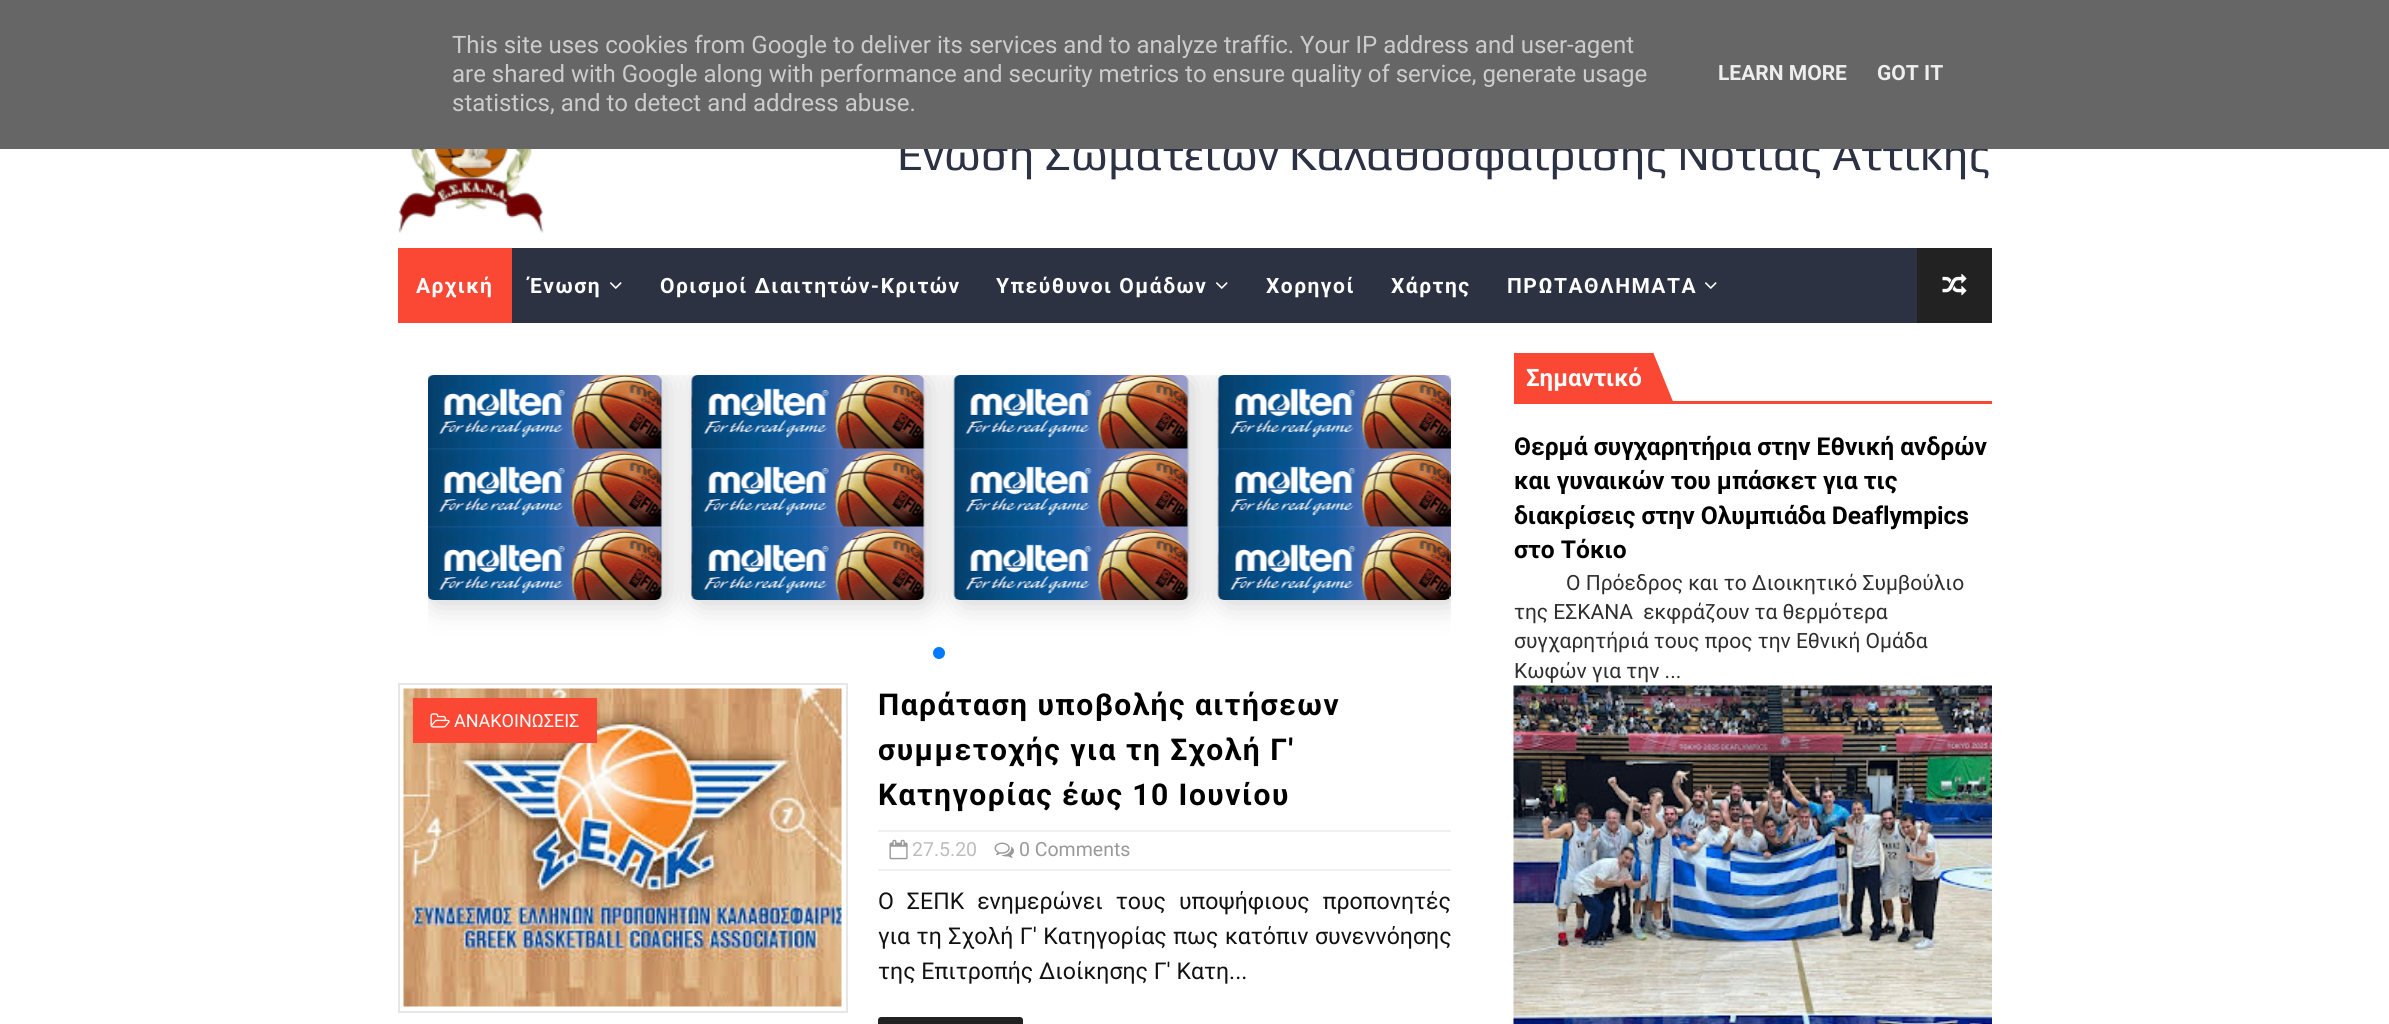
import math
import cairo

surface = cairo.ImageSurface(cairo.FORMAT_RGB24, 2389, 1024)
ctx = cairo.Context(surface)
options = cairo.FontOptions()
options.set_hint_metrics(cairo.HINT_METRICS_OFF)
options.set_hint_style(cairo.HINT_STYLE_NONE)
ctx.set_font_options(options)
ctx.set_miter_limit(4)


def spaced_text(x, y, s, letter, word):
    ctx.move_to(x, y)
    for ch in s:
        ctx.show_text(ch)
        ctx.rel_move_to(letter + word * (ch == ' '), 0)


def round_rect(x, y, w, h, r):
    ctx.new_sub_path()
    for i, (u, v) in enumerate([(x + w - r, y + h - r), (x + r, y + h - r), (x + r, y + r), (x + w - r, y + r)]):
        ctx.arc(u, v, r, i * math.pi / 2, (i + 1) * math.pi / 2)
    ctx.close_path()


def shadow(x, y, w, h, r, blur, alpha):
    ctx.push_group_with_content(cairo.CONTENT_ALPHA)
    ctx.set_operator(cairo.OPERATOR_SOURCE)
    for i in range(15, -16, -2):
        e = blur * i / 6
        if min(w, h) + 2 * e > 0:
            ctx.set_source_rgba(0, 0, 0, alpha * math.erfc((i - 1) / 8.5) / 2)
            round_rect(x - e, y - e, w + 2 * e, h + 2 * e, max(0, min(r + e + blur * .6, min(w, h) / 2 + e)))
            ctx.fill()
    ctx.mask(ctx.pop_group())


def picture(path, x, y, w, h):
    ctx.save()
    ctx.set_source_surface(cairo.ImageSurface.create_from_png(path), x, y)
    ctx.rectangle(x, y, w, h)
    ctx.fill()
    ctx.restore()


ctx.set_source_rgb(1, 1, 1)
ctx.paint()
ctx.select_font_face("Play")
ctx.set_font_size(45)
ctx.set_source_rgb(0.173, 0.196, 0.263)
ctx.move_to(897, 170)
ctx.show_text("Ένωση Σωματείων Καλαθοσφαίρισης Νότιας Αττικής")
ctx.set_source_rgb(0.4, 0.4, 0.4)
ctx.rectangle(0, 0, 2389, 149)
ctx.fill()
ctx.select_font_face("Roboto")
ctx.set_font_size(24)
ctx.set_source_rgb(0.8, 0.8, 0.8)
ctx.move_to(452, 53)
ctx.show_text("This site uses cookies from Google to deliver its services and to analyze traffic. Your IP address and user-agent")
ctx.move_to(452, 82)
ctx.show_text("are shared with Google along with performance and security metrics to ensure quality of service, generate usage")
ctx.move_to(452, 111)
ctx.show_text("statistics, and to detect and address abuse.")
ctx.select_font_face("Roboto", cairo.FONT_SLANT_NORMAL, cairo.FONT_WEIGHT_BOLD)
ctx.set_font_size(21)
ctx.set_source_rgb(0.933, 0.933, 0.933)
ctx.move_to(1718, 80)
ctx.show_text("LEARN MORE")
ctx.move_to(1877, 80)
ctx.show_text("GOT IT")
picture("img1.png", 398, 149, 146, 84)
ctx.set_source_rgb(0.173, 0.196, 0.259)
ctx.rectangle(512, 248, 1405, 75)
ctx.fill()
ctx.set_source_rgb(0.984, 0.282, 0.204)
ctx.rectangle(398, 248, 114, 75)
ctx.fill()
ctx.set_source_rgb(1, 1, 1)
spaced_text(416, 293, "Αρχική", 1.5, 0)
spaced_text(529, 293, "Ένωση", 1.5, 0)
picture("img2.png", 610, 282, 12, 7)
spaced_text(660, 293, "Ορισμοί Διαιτητών-Κριτών", 1.5, 0)
spaced_text(996, 293, "Υπεύθυνοι Ομάδων", 1.5, 0)
picture("img2.png", 1216, 282, 12, 7)
spaced_text(1266, 293, "Χορηγοί", 1.5, 0)
spaced_text(1391, 293, "Χάρτης", 1.5, 0)
spaced_text(1507, 293, "ΠΡΩΤΑΘΛΗΜΑΤΑ", 1.5, 0)
picture("img2.png", 1705, 282, 12, 7)
ctx.set_source_rgb(0.133, 0.133, 0.133)
ctx.rectangle(1917, 248, 75, 75)
ctx.fill()
picture("img3.png", 1942, 273, 25, 23)
ctx.set_source_rgb(0.984, 0.282, 0.204)
ctx.rectangle(1672, 401, 320, 3)
ctx.fill()
ctx.rectangle(1514, 353, 139, 51)
ctx.fill()
ctx.set_font_size(24)
ctx.set_source_rgb(1, 1, 1)
ctx.move_to(1526, 386)
ctx.show_text("Σημαντικό")
ctx.set_source_rgb(0.984, 0.282, 0.204)
ctx.new_path()
ctx.move_to(1674, 404)
ctx.line_to(1653, 404)
ctx.line_to(1653, 352)
ctx.close_path()
ctx.fill()
ctx.set_font_size(24.6)
ctx.set_source_rgb(0, 0, 0)
ctx.move_to(1514, 455)
ctx.show_text("Θερμά συγχαρητήρια στην Εθνική ανδρών")
ctx.move_to(1514, 489)
ctx.show_text("και γυναικών του μπάσκετ για τις")
ctx.move_to(1514, 524)
ctx.show_text("διακρίσεις στην Ολυμπιάδα Deaflympics")
ctx.move_to(1514, 558)
ctx.show_text("στο Τόκιο")
ctx.select_font_face("Roboto")
ctx.set_font_size(21)
ctx.set_source_rgb(0.18, 0.18, 0.18)
ctx.move_to(1566, 590)
ctx.show_text("Ο Πρόεδρος και το Διοικητικό Συμβούλιο")
ctx.move_to(1514, 619)
ctx.show_text("της ΕΣΚΑΝΑ  εκφράζουν τα θερμότερα")
ctx.move_to(1514, 648)
ctx.show_text("συγχαρητήριά τους προς την Εθνική Ομάδα")
ctx.move_to(1514, 678)
ctx.show_text("Κωφών για την ...")
picture("img4.png", 1513, 685, 479, 339)
ctx.save()
ctx.rectangle(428, 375, 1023, 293)
ctx.clip()
ctx.set_source_rgb(0, 0, 0)
shadow(432, 378, 234, 225, 6, 15, 0.2)
ctx.restore()
picture("img5.png", 428, 375, 234, 225)
ctx.save()
ctx.rectangle(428, 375, 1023, 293)
ctx.clip()
ctx.set_source_rgb(0, 0, 0)
shadow(696, 378, 233, 225, 6, 15, 0.2)
ctx.restore()
picture("img6.png", 691, 375, 234, 225)
ctx.save()
ctx.rectangle(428, 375, 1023, 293)
ctx.clip()
ctx.set_source_rgb(0, 0, 0)
shadow(959, 378, 234, 225, 6, 15, 0.2)
ctx.restore()
picture("img7.png", 953, 375, 236, 225)
ctx.save()
ctx.rectangle(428, 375, 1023, 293)
ctx.clip()
ctx.set_source_rgb(0, 0, 0)
shadow(1223, 378, 232, 225, 6, 15, 0.2)
ctx.restore()
picture("img8.png", 1217, 375, 234, 225)
ctx.set_source_rgb(0, 0.478, 1)
ctx.arc(939, 653, 6, 0, 2 * math.pi)
ctx.fill()
ctx.rectangle(399, 684, 448, 328)
ctx.set_source_rgb(0.902, 0.902, 0.902)
ctx.stroke()
picture("img9.png", 403, 688, 439, 319)
ctx.set_source_rgb(0.984, 0.282, 0.204)
ctx.rectangle(413, 698, 184, 45)
ctx.fill()
picture("img10.png", 430, 713, 20, 15)
ctx.set_font_size(18)
ctx.set_source_rgb(1, 1, 1)
ctx.move_to(454, 727)
ctx.show_text("ΑΝΑΚΟΙΝΩΣΕΙΣ")
ctx.select_font_face("Roboto", cairo.FONT_SLANT_NORMAL, cairo.FONT_WEIGHT_BOLD)
ctx.set_font_size(30)
ctx.set_source_rgb(0, 0, 0)
spaced_text(878, 715, "Παράταση υποβολής αιτήσεων", 1.5, 0)
spaced_text(878, 760, "συμμετοχής για τη Σχολή Γ'", 1.5, 0)
spaced_text(878, 805, "Κατηγορίας έως 10 Ιουνίου", 1.5, 0)
ctx.set_source_rgb(0.941, 0.941, 0.941)
ctx.rectangle(878, 830, 573, 2)
ctx.fill()
ctx.rectangle(878, 869, 573, 2)
ctx.fill()
picture("img11.png", 889, 839, 19, 21)
ctx.select_font_face("Roboto")
ctx.set_font_size(19.5)
ctx.set_source_rgb(0.741, 0.741, 0.741)
ctx.move_to(912, 856)
ctx.show_text("27.5.20")
picture("img12.png", 994, 842, 20, 16)
ctx.set_source_rgb(0.6, 0.6, 0.6)
ctx.move_to(1019, 856)
ctx.show_text("0 Comments")
ctx.set_font_size(23.1)
ctx.set_source_rgb(0.067, 0.067, 0.067)
spaced_text(878, 909, "Ο ΣΕΠΚ ενημερώνει τους υποψήφιους προπονητές", 0, 7.25)
spaced_text(878, 944, "για τη Σχολή Γ' Κατηγορίας πως κατόπιν συνεννόησης", 0, 0.75)
ctx.move_to(878, 979)
ctx.show_text("της Επιτροπής Διοίκησης Γ' Κατη...")
ctx.set_source_rgb(0.133, 0.133, 0.133)
round_rect(878, 1017, 145, 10, 3)
ctx.fill()
surface.write_to_png("page.png")
